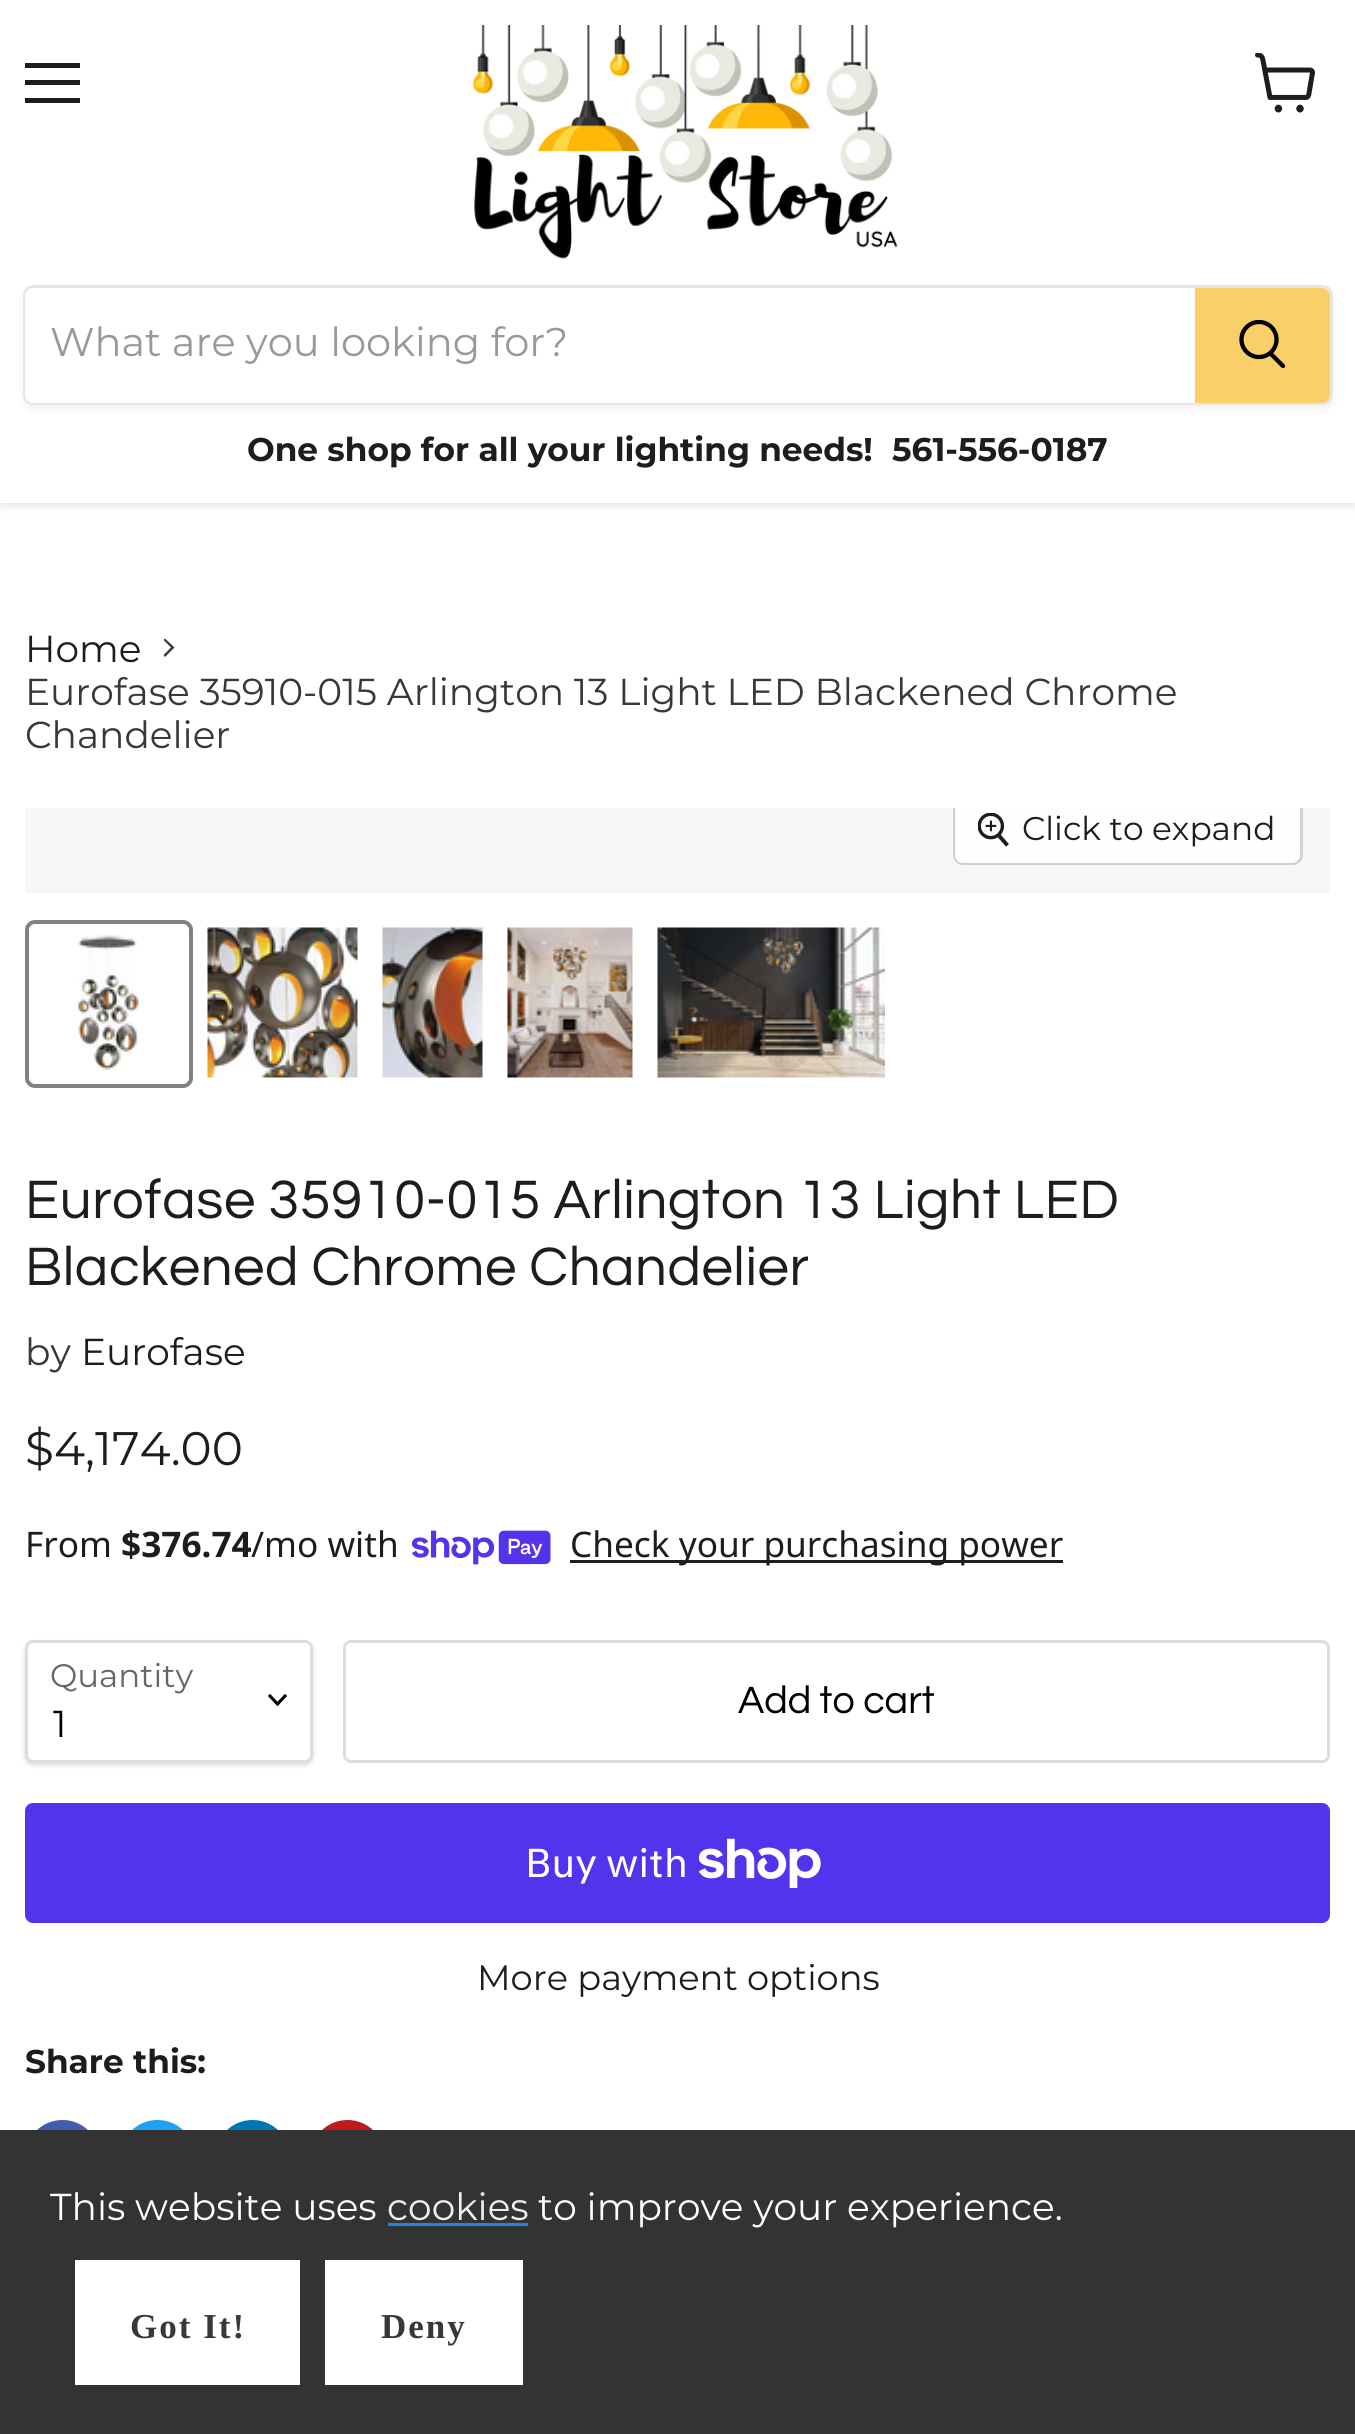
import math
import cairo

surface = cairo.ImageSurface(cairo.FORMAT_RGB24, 1355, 2434)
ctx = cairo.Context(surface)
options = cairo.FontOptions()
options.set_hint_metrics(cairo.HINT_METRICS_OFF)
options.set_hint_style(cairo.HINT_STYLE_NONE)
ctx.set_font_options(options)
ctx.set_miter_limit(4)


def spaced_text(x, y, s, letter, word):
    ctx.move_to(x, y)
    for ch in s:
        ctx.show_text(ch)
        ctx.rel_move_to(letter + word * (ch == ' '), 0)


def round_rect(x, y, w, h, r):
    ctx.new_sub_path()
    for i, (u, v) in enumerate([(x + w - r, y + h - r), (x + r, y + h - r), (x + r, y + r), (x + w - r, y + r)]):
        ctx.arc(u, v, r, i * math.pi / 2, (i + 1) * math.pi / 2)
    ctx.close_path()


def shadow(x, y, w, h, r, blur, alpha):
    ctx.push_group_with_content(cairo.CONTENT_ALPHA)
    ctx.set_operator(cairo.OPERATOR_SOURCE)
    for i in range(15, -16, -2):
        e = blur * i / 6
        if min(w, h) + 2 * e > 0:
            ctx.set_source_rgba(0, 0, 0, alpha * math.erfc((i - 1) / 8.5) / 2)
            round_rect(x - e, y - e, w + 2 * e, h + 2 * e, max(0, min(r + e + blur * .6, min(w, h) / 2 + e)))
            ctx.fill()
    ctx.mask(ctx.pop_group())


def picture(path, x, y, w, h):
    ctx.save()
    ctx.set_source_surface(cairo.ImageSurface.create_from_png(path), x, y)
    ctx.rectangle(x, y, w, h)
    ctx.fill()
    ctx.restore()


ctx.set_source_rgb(1, 1, 1)
ctx.paint()
ctx.set_source_rgb(0.502, 0.502, 0.502)
shadow(0, 3, 1355, 502, 0, 5, 0.25)
ctx.set_source_rgb(1, 1, 1)
ctx.rectangle(0, 0, 1355, 503)
ctx.fill()
ctx.set_source_rgb(0.114, 0.114, 0.114)
ctx.rectangle(25, 63, 55, 5)
ctx.fill()
ctx.rectangle(25, 80, 55, 5)
ctx.fill()
ctx.rectangle(25, 98, 55, 5)
ctx.fill()
picture("img1.png", 1255, 53, 60, 60)
picture("img2.png", 473, 25, 425, 234)
ctx.save()
ctx.set_fill_rule(cairo.FILL_RULE_EVEN_ODD)
ctx.new_path()
ctx.move_to(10, 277)
ctx.line_to(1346, 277)
ctx.line_to(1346, 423)
ctx.line_to(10, 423)
ctx.close_path()
ctx.move_to(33, 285)
ctx.line_to(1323, 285)
ctx.curve_to(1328.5, 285, 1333, 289.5, 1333, 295)
ctx.line_to(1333, 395)
ctx.curve_to(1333, 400.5, 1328.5, 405, 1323, 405)
ctx.line_to(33, 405)
ctx.curve_to(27.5, 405, 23, 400.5, 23, 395)
ctx.line_to(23, 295)
ctx.curve_to(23, 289.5, 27.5, 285, 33, 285)
ctx.close_path()
ctx.clip()
ctx.set_source_rgb(0.502, 0.502, 0.502)
shadow(23, 290, 1310, 120, 10, 4, 0.11)
ctx.restore()
round_rect(24.5, 286.5, 1307, 117, 8.5)
ctx.set_source_rgba(0.502, 0.502, 0.502, 0.2)
ctx.set_line_width(3)
ctx.stroke()
ctx.set_source_rgb(1, 1, 1)
ctx.new_path()
ctx.move_to(33, 288)
ctx.line_to(1195, 288)
ctx.line_to(1195, 403)
ctx.line_to(33, 403)
ctx.curve_to(28.5, 403, 25, 399.5, 25, 395)
ctx.line_to(25, 296)
ctx.curve_to(25, 291.5, 28.5, 288, 33, 288)
ctx.close_path()
ctx.fill()
ctx.select_font_face("Montserrat")
ctx.set_font_size(40)
ctx.set_source_rgb(0.6, 0.6, 0.6)
ctx.move_to(50, 356)
ctx.show_text("What are you looking for?")
ctx.set_source_rgb(0.98, 0.808, 0.408)
ctx.new_path()
ctx.move_to(1196.5, 289.5)
ctx.line_to(1322, 289.5)
ctx.curve_to(1325.5, 289.5, 1328.5, 292.5, 1328.5, 296)
ctx.line_to(1328.5, 395)
ctx.curve_to(1328.5, 398.5, 1325.5, 401.5, 1322, 401.5)
ctx.line_to(1196.5, 401.5)
ctx.close_path()
ctx.fill_preserve()
ctx.stroke()
ctx.new_path()
ctx.move_to(1283, 366)
ctx.line_to(1271, 354)
ctx.set_source_rgb(0, 0, 0)
ctx.set_line_width(4.3)
ctx.set_line_cap(cairo.LINE_CAP_ROUND)
ctx.stroke()
ctx.save()
ctx.rectangle(1238, 320, 50, 53)
ctx.clip()
ctx.arc(1259, 339.5, 17.5, 0, 2 * math.pi)
ctx.set_line_cap(cairo.LINE_CAP_BUTT)
ctx.stroke()
ctx.restore()
ctx.select_font_face("Montserrat", cairo.FONT_SLANT_NORMAL, cairo.FONT_WEIGHT_BOLD)
ctx.set_font_size(32.8)
ctx.set_source_rgb(0.114, 0.114, 0.114)
ctx.move_to(247, 461)
ctx.show_text("One shop for all your lighting needs!")
ctx.move_to(892, 461)
ctx.show_text("561-556-0187")
ctx.select_font_face("Montserrat")
ctx.set_font_size(37.5)
ctx.move_to(25, 662)
ctx.show_text("Home")
ctx.set_source_rgb(0.22, 0.22, 0.22)
ctx.set_fill_rule(cairo.FILL_RULE_EVEN_ODD)
ctx.new_path()
ctx.move_to(163.5, 655)
ctx.line_to(165, 657)
ctx.line_to(174.5, 647.5)
ctx.line_to(165, 638.5)
ctx.line_to(163.5, 640)
ctx.line_to(171, 647.5)
ctx.close_path()
ctx.fill()
ctx.move_to(25, 705)
ctx.show_text("Eurofase 35910-015 Arlington 13 Light LED Blackened Chrome")
ctx.move_to(25, 748)
ctx.show_text("Chandelier")
ctx.set_source_rgb(0.965, 0.965, 0.965)
ctx.rectangle(25, 808, 1305, 85)
ctx.fill()
ctx.save()
ctx.set_fill_rule(cairo.FILL_RULE_WINDING)
ctx.rectangle(25, 808, 1305, 85)
ctx.clip()
round_rect(954.5, 794.5, 347, 69, 8.5)
ctx.set_source_rgb(0.82, 0.82, 0.82)
ctx.set_line_width(3)
ctx.set_line_cap(cairo.LINE_CAP_BUTT)
ctx.stroke()
ctx.restore()
ctx.set_source_rgba(1, 1, 1, 0.9)
ctx.new_path()
ctx.move_to(955, 808)
ctx.line_to(1300, 808)
ctx.line_to(1300, 855)
ctx.curve_to(1300, 859.5, 1296.5, 863, 1292, 863)
ctx.line_to(963, 863)
ctx.curve_to(958.5, 863, 955, 859.5, 955, 855)
ctx.close_path()
ctx.fill()
picture("img3.png", 978, 813, 31, 34)
ctx.set_font_size(32.8)
ctx.set_source_rgb(0.114, 0.114, 0.114)
ctx.move_to(1022, 840)
ctx.show_text("Click to expand")
round_rect(27, 922, 164, 164, 8)
ctx.set_source_rgb(0.506, 0.506, 0.506)
ctx.set_line_width(4)
ctx.set_line_cap(cairo.LINE_CAP_BUTT)
ctx.stroke()
picture("img4.png", 73, 935, 71, 136)
picture("img5.png", 207, 927, 151, 151)
picture("img6.png", 382, 927, 101, 151)
picture("img7.png", 507, 927, 126, 151)
picture("img8.png", 657, 927, 228, 151)
ctx.select_font_face("Questrial")
ctx.set_font_size(56.25)
ctx.set_source_rgb(0.114, 0.114, 0.114)
spaced_text(25, 1218, "Eurofase 35910-015 Arlington 13 Light LED", 0.55, 0)
spaced_text(25, 1285, "Blackened Chrome Chandelier", 0.55, 0)
ctx.select_font_face("Montserrat")
ctx.set_font_size(37.5)
ctx.set_source_rgb(0.22, 0.22, 0.22)
ctx.move_to(25, 1365)
ctx.show_text("by")
ctx.set_source_rgb(0.114, 0.114, 0.114)
ctx.move_to(81, 1365)
ctx.show_text("Eurofase")
ctx.set_font_size(47)
ctx.move_to(25, 1465)
ctx.show_text("$4,174.00")
ctx.select_font_face("Noto Sans")
ctx.set_font_size(35.2)
ctx.move_to(25, 1557)
ctx.show_text("From")
ctx.select_font_face("Noto Sans", cairo.FONT_SLANT_NORMAL, cairo.FONT_WEIGHT_BOLD)
ctx.move_to(121, 1557)
ctx.show_text("$376.74")
ctx.select_font_face("Noto Sans")
ctx.move_to(251, 1557)
ctx.show_text("/mo with")
picture("img9.png", 411, 1530, 140, 35)
ctx.rectangle(570, 1560, 493, 3)
ctx.fill()
ctx.move_to(570, 1557)
ctx.show_text("Check your purchasing power")
ctx.set_source_rgb(0, 0, 0)
shadow(25, 1643, 288, 122, 8, 2.5, 0.15)
ctx.set_source_rgb(1, 1, 1)
round_rect(26.5, 1641.5, 285, 120, 6.5)
ctx.fill_preserve()
ctx.set_source_rgb(0.867, 0.867, 0.867)
ctx.set_line_width(3)
ctx.stroke()
ctx.select_font_face("Montserrat")
ctx.set_font_size(32.5)
ctx.set_source_rgb(0.4, 0.4, 0.4)
ctx.move_to(50, 1687)
ctx.show_text("Quantity")
ctx.new_path()
ctx.move_to(277.5, 1704)
ctx.line_to(285, 1696)
ctx.move_to(277.5, 1704)
ctx.line_to(270, 1696)
ctx.set_source_rgb(0, 0, 0)
ctx.set_line_width(3.1)
ctx.set_line_cap(cairo.LINE_CAP_SQUARE)
ctx.stroke()
ctx.set_font_size(37.5)
ctx.move_to(53, 1737)
ctx.show_text("1")
round_rect(344.5, 1641.5, 984, 120, 6.5)
ctx.set_source_rgb(0.867, 0.867, 0.867)
ctx.set_line_width(3)
ctx.set_line_cap(cairo.LINE_CAP_BUTT)
ctx.stroke()
ctx.select_font_face("Questrial")
ctx.set_font_size(39.5)
ctx.set_source_rgb(0, 0, 0)
ctx.move_to(738, 1713)
ctx.show_text("Add to cart")
ctx.set_source_rgb(0.329, 0.2, 0.922)
round_rect(25, 1803, 1305, 120, 8)
ctx.fill()
ctx.select_font_face("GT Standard")
ctx.set_font_size(40)
ctx.set_source_rgb(1, 1, 1)
ctx.move_to(525, 1877)
ctx.show_text("Buy with")
picture("img10.png", 698, 1838, 123, 50)
ctx.select_font_face("Montserrat")
ctx.set_font_size(35.2)
ctx.set_source_rgb(0.114, 0.114, 0.114)
ctx.move_to(477, 1990)
ctx.show_text("More payment options")
ctx.select_font_face("Montserrat", cairo.FONT_SLANT_NORMAL, cairo.FONT_WEIGHT_BOLD)
ctx.set_font_size(32.8)
ctx.move_to(25, 2073)
ctx.show_text("Share this:")
ctx.set_source_rgb(0.259, 0.365, 0.671)
ctx.new_path()
ctx.arc(62.5, 2157.5, 37.5, 0, 2 * math.pi)
ctx.fill()
ctx.set_source_rgb(0.114, 0.631, 0.949)
ctx.arc(157.5, 2157.5, 37.5, 0, 2 * math.pi)
ctx.fill()
ctx.set_source_rgb(0, 0.467, 0.71)
ctx.arc(252.5, 2157.5, 37.5, 0, 2 * math.pi)
ctx.fill()
ctx.set_source_rgb(0.741, 0.11, 0.11)
ctx.arc(347.5, 2157.5, 37.5, 0, 2 * math.pi)
ctx.fill()
ctx.set_source_rgb(0.2, 0.2, 0.2)
ctx.rectangle(0, 2130, 1355, 304)
ctx.fill()
ctx.select_font_face("Montserrat")
ctx.set_font_size(37.5)
ctx.set_source_rgb(1, 1, 1)
ctx.move_to(50, 2220)
ctx.show_text("This website uses")
ctx.set_source_rgb(0.925, 0.941, 0.945)
ctx.move_to(387, 2220)
ctx.show_text("cookies")
ctx.set_source_rgb(0.149, 0.502, 0.922)
ctx.rectangle(388, 2223, 140, 3)
ctx.fill()
ctx.set_source_rgb(1, 1, 1)
ctx.move_to(538, 2220)
ctx.show_text("to improve your experience.")
ctx.rectangle(75, 2260, 225, 125)
ctx.fill()
ctx.select_font_face("Liberation Serif", cairo.FONT_SLANT_NORMAL, cairo.FONT_WEIGHT_BOLD)
ctx.set_font_size(35)
ctx.set_source_rgb(0.22, 0.22, 0.22)
spaced_text(130, 2338, "Got It!", 2, 0)
ctx.set_source_rgb(1, 1, 1)
ctx.rectangle(325, 2260, 198, 125)
ctx.fill()
ctx.set_source_rgb(0.22, 0.22, 0.22)
spaced_text(381, 2338, "Deny", 2, 0)
surface.write_to_png("page.png")
